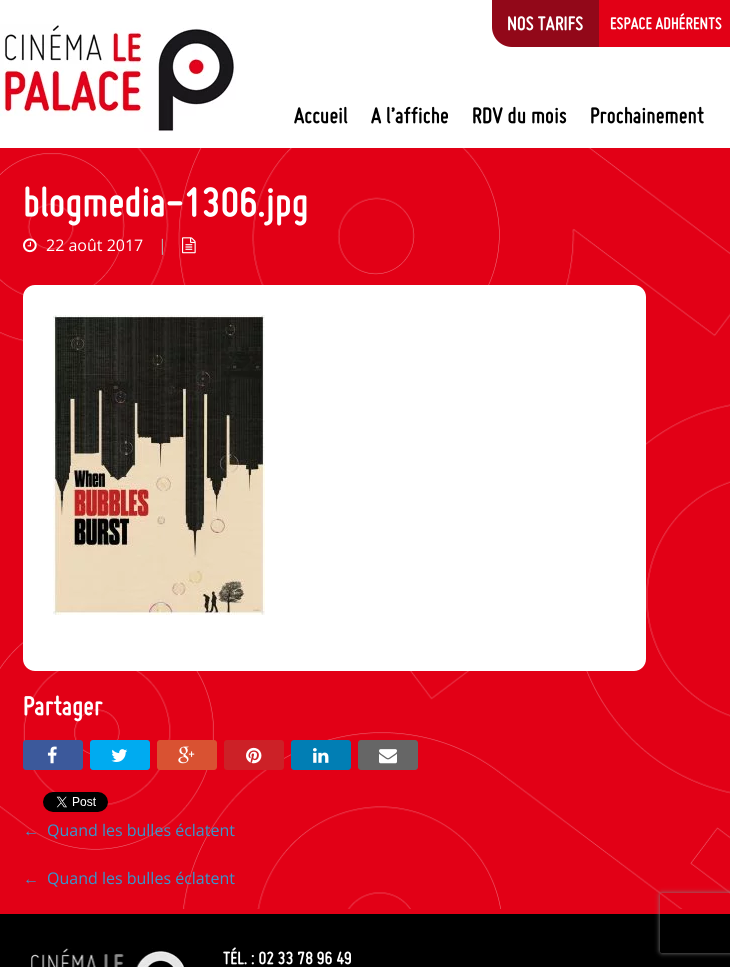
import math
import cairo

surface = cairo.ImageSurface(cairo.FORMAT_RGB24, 730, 967)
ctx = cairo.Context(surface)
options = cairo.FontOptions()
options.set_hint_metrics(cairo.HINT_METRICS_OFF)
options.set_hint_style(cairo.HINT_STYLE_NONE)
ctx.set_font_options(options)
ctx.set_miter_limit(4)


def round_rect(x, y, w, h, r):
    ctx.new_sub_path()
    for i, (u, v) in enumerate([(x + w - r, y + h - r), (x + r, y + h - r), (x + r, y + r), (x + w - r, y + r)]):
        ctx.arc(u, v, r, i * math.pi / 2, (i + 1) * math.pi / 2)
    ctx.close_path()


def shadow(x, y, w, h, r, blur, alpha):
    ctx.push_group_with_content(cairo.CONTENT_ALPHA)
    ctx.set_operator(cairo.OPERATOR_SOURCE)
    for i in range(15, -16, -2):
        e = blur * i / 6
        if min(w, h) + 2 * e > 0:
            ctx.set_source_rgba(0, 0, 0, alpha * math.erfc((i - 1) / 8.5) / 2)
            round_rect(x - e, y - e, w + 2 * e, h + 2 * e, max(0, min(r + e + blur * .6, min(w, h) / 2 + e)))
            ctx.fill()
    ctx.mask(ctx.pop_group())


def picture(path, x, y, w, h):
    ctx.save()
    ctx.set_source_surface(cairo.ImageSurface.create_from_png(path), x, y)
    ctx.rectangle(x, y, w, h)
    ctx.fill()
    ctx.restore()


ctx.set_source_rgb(0.886, 0, 0.086)
ctx.paint()
ctx.set_source_rgb(1, 1, 1)
ctx.rectangle(0, 0, 730, 148)
ctx.fill()
ctx.set_source_rgb(0.886, 0, 0.086)
ctx.new_path()
ctx.move_to(492, 0)
ctx.line_to(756, 0)
ctx.line_to(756, 21)
ctx.curve_to(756, 35.5, 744.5, 47, 730, 47)
ctx.line_to(518, 47)
ctx.curve_to(503.5, 47, 492, 35.5, 492, 21)
ctx.close_path()
ctx.fill()
ctx.set_source_rgb(0.573, 0.035, 0.098)
ctx.new_path()
ctx.move_to(492, 0)
ctx.line_to(599, 0)
ctx.line_to(599, 47)
ctx.line_to(512, 47)
ctx.curve_to(501, 47, 492, 38, 492, 27)
ctx.close_path()
ctx.fill()
ctx.select_font_face("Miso", cairo.FONT_SLANT_ITALIC, cairo.FONT_WEIGHT_BOLD)
ctx.set_font_size(21)
ctx.set_source_rgb(1, 1, 1)
ctx.move_to(507, 30)
ctx.show_text("NOS TARIFS")
ctx.set_font_size(18)
ctx.move_to(610, 29)
ctx.show_text("ESPACE ADHÉRENTS")
picture("img1.png", 0, 24, 236, 108)
ctx.set_font_size(24)
ctx.set_source_rgb(0, 0, 0)
ctx.move_to(294, 123)
ctx.show_text("Accueil")
ctx.move_to(371, 123)
ctx.show_text("A l’affiche")
ctx.move_to(472, 123)
ctx.show_text("RDV du mois")
ctx.move_to(590, 123)
ctx.show_text("Prochainement")
picture("img12.png", 0, 148, 730, 761)
ctx.set_font_size(44)
ctx.set_source_rgb(1, 1, 1)
ctx.move_to(23, 216)
ctx.show_text("blogmedia-1306.jpg")
picture("img2.png", 23, 238, 14, 15)
ctx.select_font_face("Open Sans")
ctx.set_font_size(16)
ctx.move_to(46, 251)
ctx.show_text("22 août 2017")
ctx.set_source_rgb(0.698, 0.698, 0.698)
ctx.move_to(158, 251)
ctx.show_text("|")
picture("img3.png", 182, 237, 14, 17)
ctx.set_source_rgb(1, 1, 1)
round_rect(23, 285, 623, 386, 12)
ctx.fill()
picture("img4.png", 53, 315, 212, 300)
ctx.select_font_face("Miso", cairo.FONT_SLANT_ITALIC, cairo.FONT_WEIGHT_BOLD)
ctx.set_font_size(29)
ctx.move_to(23, 715)
ctx.show_text("Partager")
ctx.set_source_rgb(0.235, 0.349, 0.608)
round_rect(23, 740, 60, 30, 3)
ctx.fill()
picture("img5.png", 47, 746, 10, 18)
ctx.set_source_rgb(0, 0.671, 0.941)
round_rect(90, 740, 60, 30, 3)
ctx.fill()
picture("img6.png", 111, 749, 17, 13)
ctx.set_source_rgb(0.851, 0.322, 0.196)
round_rect(157, 740, 60, 30, 3)
ctx.fill()
picture("img7.png", 178, 746, 17, 18)
ctx.set_source_rgb(0.8, 0.129, 0.153)
round_rect(224, 740, 60, 30, 3)
ctx.fill()
picture("img8.png", 246, 747, 16, 17)
ctx.set_source_rgb(0.004, 0.494, 0.706)
round_rect(291, 740, 60, 30, 3)
ctx.fill()
picture("img9.png", 313, 748, 16, 15)
ctx.set_source_rgb(0.4, 0.4, 0.4)
round_rect(358, 740, 60, 30, 3)
ctx.fill()
picture("img10.png", 379, 749, 18, 15)
picture("img11.png", 43, 792, 65, 20)
ctx.select_font_face("Liberation Sans")
ctx.set_font_size(16)
ctx.set_source_rgb(0.208, 0.596, 0.808)
ctx.move_to(23, 836)
ctx.show_text("←")
ctx.select_font_face("Open Sans")
ctx.move_to(47, 836)
ctx.show_text("Quand les bulles éclatent")
ctx.select_font_face("Liberation Sans")
ctx.move_to(23, 884)
ctx.show_text("←")
ctx.select_font_face("Open Sans")
ctx.move_to(47, 884)
ctx.show_text("Quand les bulles éclatent")
ctx.set_source_rgb(0, 0, 0)
ctx.rectangle(0, 914, 730, 53)
ctx.fill()
picture("img13.png", 31, 948, 153, 19)
ctx.select_font_face("Miso", cairo.FONT_SLANT_ITALIC, cairo.FONT_WEIGHT_BOLD)
ctx.set_font_size(19)
ctx.set_source_rgb(1, 1, 1)
ctx.move_to(223, 964)
ctx.show_text("TÉL. : 02 33 78 96 49")
ctx.save()
ctx.set_fill_rule(cairo.FILL_RULE_EVEN_ODD)
ctx.new_path()
ctx.move_to(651, 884)
ctx.line_to(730, 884)
ctx.line_to(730, 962)
ctx.line_to(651, 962)
ctx.close_path()
ctx.move_to(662, 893)
ctx.line_to(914, 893)
ctx.curve_to(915, 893, 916, 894, 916, 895)
ctx.line_to(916, 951)
ctx.curve_to(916, 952, 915, 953, 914, 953)
ctx.line_to(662, 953)
ctx.curve_to(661, 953, 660, 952, 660, 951)
ctx.line_to(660, 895)
ctx.curve_to(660, 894, 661, 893, 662, 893)
ctx.close_path()
ctx.clip()
ctx.set_source_rgb(0.502, 0.502, 0.502)
shadow(660, 893, 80, 60, 2, 2.5, 1)
ctx.restore()
surface.write_to_png("page.png")
